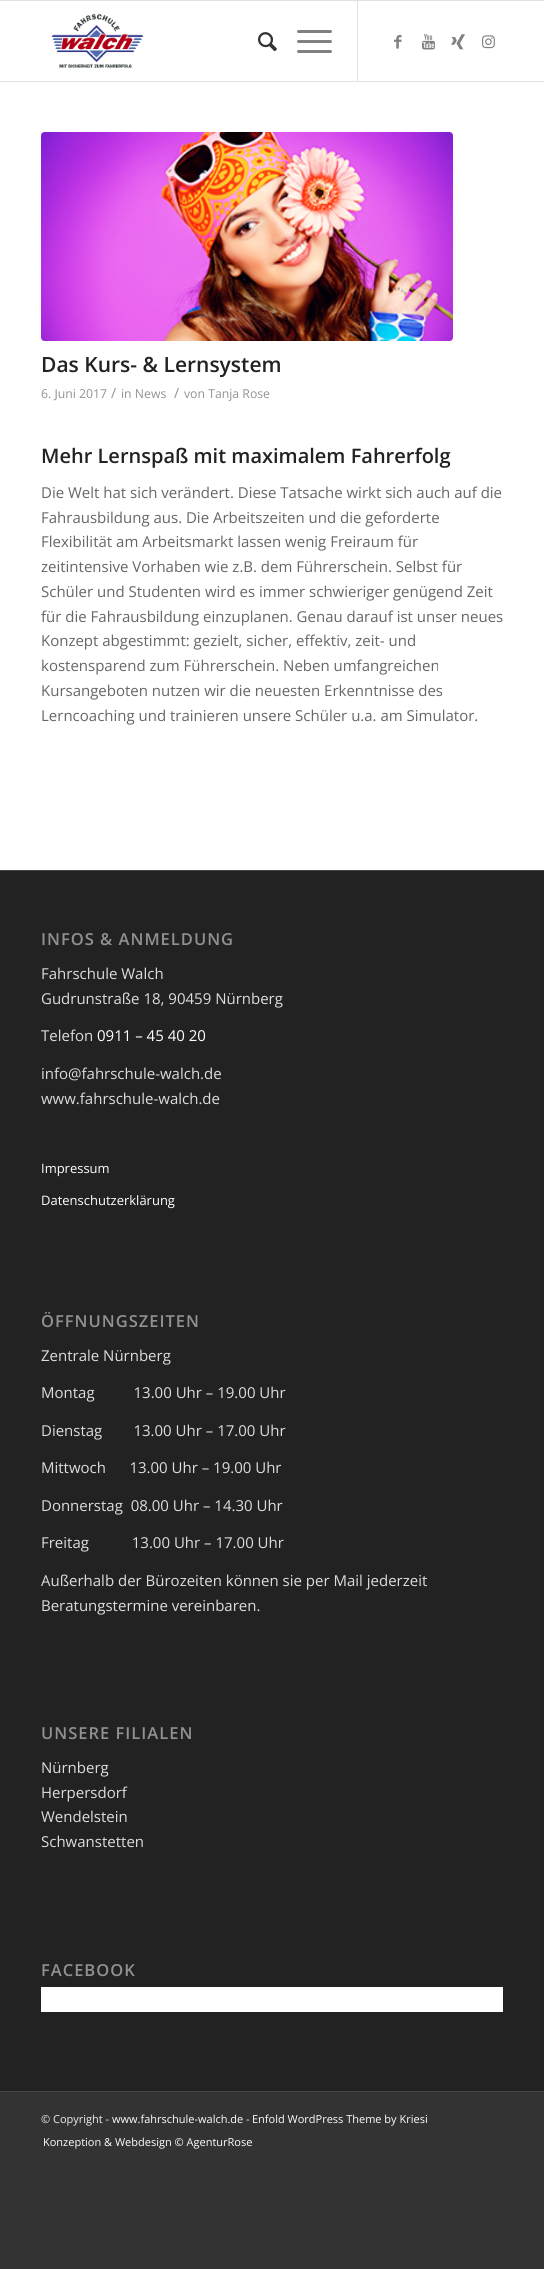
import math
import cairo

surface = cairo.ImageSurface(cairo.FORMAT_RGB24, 544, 2269)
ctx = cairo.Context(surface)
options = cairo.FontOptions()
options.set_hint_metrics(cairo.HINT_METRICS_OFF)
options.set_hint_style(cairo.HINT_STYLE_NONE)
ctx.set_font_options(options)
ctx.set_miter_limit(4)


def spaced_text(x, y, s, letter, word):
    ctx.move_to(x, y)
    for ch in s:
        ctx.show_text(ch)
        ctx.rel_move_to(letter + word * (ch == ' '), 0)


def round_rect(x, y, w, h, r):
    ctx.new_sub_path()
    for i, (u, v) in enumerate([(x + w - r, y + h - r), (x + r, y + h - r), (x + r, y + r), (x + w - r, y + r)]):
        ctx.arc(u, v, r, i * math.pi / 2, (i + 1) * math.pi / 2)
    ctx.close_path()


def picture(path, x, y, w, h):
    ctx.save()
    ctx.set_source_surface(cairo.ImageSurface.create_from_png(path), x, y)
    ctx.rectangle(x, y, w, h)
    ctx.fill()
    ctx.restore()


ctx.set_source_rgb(0.2, 0.2, 0.2)
ctx.paint()
ctx.set_source_rgb(0.882, 0.882, 0.882)
ctx.rectangle(0, 0, 544, 1)
ctx.fill()
ctx.rectangle(0, 81, 544, 1)
ctx.fill()
ctx.set_source_rgb(1, 1, 1)
ctx.rectangle(0, 1, 544, 80)
ctx.fill()
picture("img1.png", 51, 14, 93, 54)
ctx.set_source_rgb(0.882, 0.882, 0.882)
ctx.rectangle(357, 1, 1, 80)
ctx.fill()
picture("img2.png", 258, 32, 19, 20)
ctx.set_source_rgb(0.502, 0.502, 0.502)
round_rect(297, 40, 35, 3, 1.5)
ctx.fill()
round_rect(297, 30, 35, 3, 1.5)
ctx.fill()
round_rect(297, 50, 35, 3, 1.5)
ctx.fill()
picture("img3.png", 394, 35, 8, 14)
picture("img4.png", 422, 34, 13, 16)
picture("img5.png", 451, 34, 14, 16)
picture("img6.png", 482, 35, 13, 14)
ctx.set_source_rgb(1, 1, 1)
ctx.rectangle(0, 82, 544, 788)
ctx.fill()
picture("img7.png", 41, 132, 412, 209)
ctx.select_font_face("Open Sans SemiBold")
ctx.set_font_size(21)
ctx.set_source_rgb(0.133, 0.133, 0.133)
ctx.move_to(41, 372)
ctx.show_text("Das Kurs- & Lernsystem")
ctx.select_font_face("Open Sans")
ctx.set_font_size(12.25)
ctx.set_source_rgb(0.569, 0.569, 0.569)
ctx.move_to(41, 398)
ctx.show_text("6. Juni 2017")
ctx.set_font_size(14)
ctx.move_to(111, 398)
ctx.show_text("/")
ctx.set_font_size(12.25)
ctx.move_to(121, 398)
ctx.show_text("in News")
ctx.set_font_size(14)
ctx.move_to(174, 398)
ctx.show_text("/")
ctx.set_font_size(12.25)
ctx.move_to(184, 398)
ctx.show_text("von Tanja Rose")
ctx.select_font_face("Open Sans SemiBold")
ctx.set_font_size(20)
ctx.set_source_rgb(0.133, 0.133, 0.133)
ctx.move_to(41, 463)
ctx.show_text("Mehr Lernspaß mit maximalem Fahrerfolg")
ctx.select_font_face("Open Sans")
ctx.set_font_size(15)
ctx.set_source_rgb(0.4, 0.4, 0.4)
ctx.move_to(41, 498)
ctx.show_text("Die Welt hat sich verändert. Diese Tatsache wirkt sich auch auf die")
ctx.move_to(41, 523)
ctx.show_text("Fahrausbildung aus. Die Arbeitszeiten und die geforderte")
ctx.move_to(41, 547)
ctx.show_text("Flexibilität am Arbeitsmarkt lassen wenig Freiraum für")
ctx.move_to(41, 572)
ctx.show_text("zeitintensive Vorhaben wie z.B. dem Führerschein. Selbst für")
ctx.move_to(41, 597)
ctx.show_text("Schüler und Studenten wird es immer schwieriger genügend Zeit")
ctx.move_to(41, 622)
ctx.show_text("für die Fahrausbildung einzuplanen. Genau darauf ist unser neues")
ctx.move_to(41, 646)
ctx.show_text("Konzept abgestimmt: gezielt, sicher, effektiv, zeit- und")
ctx.move_to(41, 671)
ctx.show_text("kostensparend zum Führerschein. Neben umfangreichen")
ctx.move_to(41, 696)
ctx.show_text("Kursangeboten nutzen wir die neuesten Erkenntnisse des")
ctx.move_to(41, 721)
ctx.show_text("Lerncoaching und trainieren unsere Schüler u.a. am Simulator.")
ctx.set_source_rgb(0.133, 0.133, 0.133)
ctx.rectangle(0, 871, 544, 1220)
ctx.fill()
ctx.set_source_rgb(0.267, 0.267, 0.267)
ctx.rectangle(0, 870, 544, 1)
ctx.fill()
ctx.select_font_face("Open Sans SemiBold")
ctx.set_font_size(16.5)
ctx.set_source_rgb(0.569, 0.569, 0.569)
spaced_text(41, 945, "INFOS & ANMELDUNG", 1, 0)
ctx.select_font_face("Open Sans")
ctx.set_font_size(15)
ctx.set_source_rgb(0.867, 0.867, 0.867)
ctx.move_to(41, 979)
ctx.show_text("Fahrschule Walch")
ctx.move_to(41, 1004)
ctx.show_text("Gudrunstraße 18, 90459 Nürnberg")
ctx.move_to(41, 1041)
ctx.show_text("Telefon")
ctx.set_source_rgb(1, 1, 1)
ctx.move_to(97, 1041)
ctx.show_text("0911 – 45 40 20")
ctx.set_source_rgb(0.867, 0.867, 0.867)
ctx.move_to(41, 1079)
ctx.show_text("info@fahrschule-walch.de")
ctx.move_to(41, 1104)
ctx.show_text("www.fahrschule-walch.de")
ctx.set_font_size(13)
ctx.set_source_rgb(1, 1, 1)
ctx.move_to(41, 1173)
ctx.show_text("Impressum")
ctx.move_to(41, 1205)
ctx.show_text("Datenschutzerklärung")
ctx.select_font_face("Open Sans SemiBold")
ctx.set_font_size(16.5)
ctx.set_source_rgb(0.569, 0.569, 0.569)
spaced_text(41, 1327, "ÖFFNUNGSZEITEN", 1, 0)
ctx.select_font_face("Open Sans")
ctx.set_font_size(15)
ctx.set_source_rgb(0.867, 0.867, 0.867)
ctx.move_to(41, 1361)
ctx.show_text("Zentrale Nürnberg")
ctx.move_to(41, 1398)
ctx.show_text("Montag          13.00 Uhr – 19.00 Uhr")
ctx.move_to(41, 1436)
ctx.show_text("Dienstag        13.00 Uhr – 17.00 Uhr")
ctx.move_to(41, 1473)
ctx.show_text("Mittwoch      13.00 Uhr – 19.00 Uhr")
ctx.move_to(41, 1511)
ctx.show_text("Donnerstag  08.00 Uhr – 14.30 Uhr")
ctx.move_to(41, 1548)
ctx.show_text("Freitag           13.00 Uhr – 17.00 Uhr")
ctx.move_to(41, 1586)
ctx.show_text("Außerhalb der Bürozeiten können sie per Mail jederzeit")
ctx.move_to(41, 1611)
ctx.show_text("Beratungstermine vereinbaren.")
ctx.select_font_face("Open Sans SemiBold")
ctx.set_font_size(16.5)
ctx.set_source_rgb(0.569, 0.569, 0.569)
spaced_text(41, 1739, "UNSERE FILIALEN", 1, 0)
ctx.select_font_face("Open Sans")
ctx.set_font_size(15)
ctx.set_source_rgb(0.867, 0.867, 0.867)
ctx.move_to(41, 1773)
ctx.show_text("Nürnberg")
ctx.move_to(41, 1798)
ctx.show_text("Herpersdorf")
ctx.move_to(41, 1822)
ctx.show_text("Wendelstein")
ctx.move_to(41, 1847)
ctx.show_text("Schwanstetten")
ctx.select_font_face("Open Sans SemiBold")
ctx.set_font_size(16.5)
ctx.set_source_rgb(0.569, 0.569, 0.569)
spaced_text(41, 1976, "FACEBOOK", 1, 0)
ctx.set_source_rgb(1, 1, 1)
ctx.rectangle(41, 1987, 462, 25)
ctx.fill()
ctx.set_source_rgb(0.267, 0.267, 0.267)
ctx.rectangle(0, 2091, 544, 1)
ctx.fill()
ctx.select_font_face("Open Sans")
ctx.set_font_size(11)
ctx.set_source_rgb(0.933, 0.933, 0.933)
ctx.move_to(41, 2123)
ctx.show_text("© Copyright -")
ctx.set_source_rgb(1, 1, 1)
ctx.move_to(112, 2123)
ctx.show_text("www.fahrschule-walch.de")
ctx.set_source_rgb(0.933, 0.933, 0.933)
ctx.move_to(246, 2123)
ctx.show_text("-")
ctx.set_source_rgb(1, 1, 1)
ctx.move_to(252, 2123)
ctx.show_text("Enfold WordPress Theme by Kriesi")
ctx.move_to(43, 2146)
ctx.show_text("Konzeption & Webdesign © AgenturRose")
surface.write_to_png("page.png")
